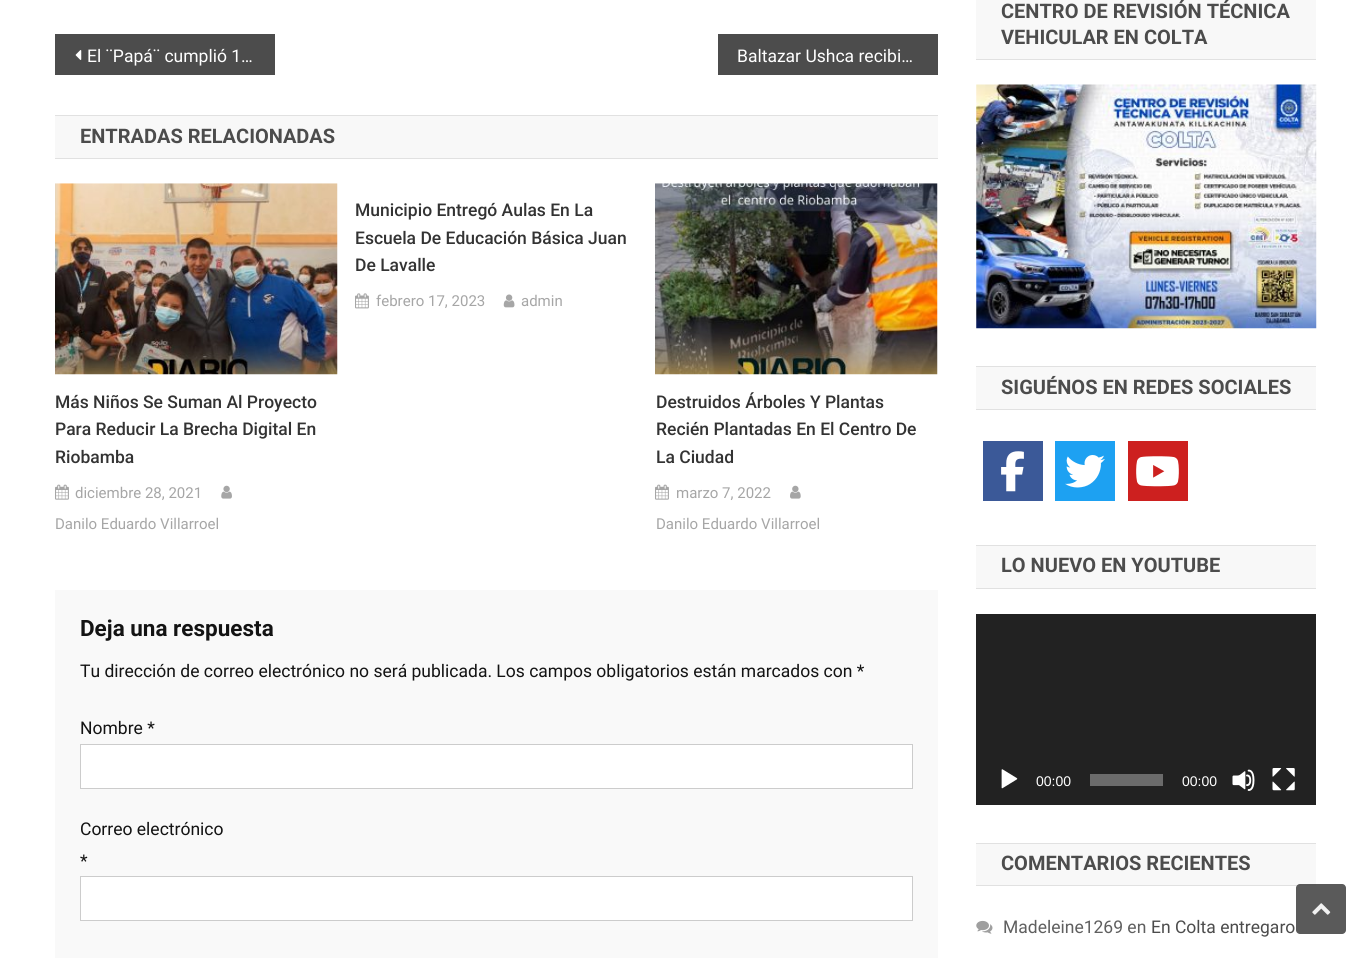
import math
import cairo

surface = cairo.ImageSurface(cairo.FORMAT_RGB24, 1371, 958)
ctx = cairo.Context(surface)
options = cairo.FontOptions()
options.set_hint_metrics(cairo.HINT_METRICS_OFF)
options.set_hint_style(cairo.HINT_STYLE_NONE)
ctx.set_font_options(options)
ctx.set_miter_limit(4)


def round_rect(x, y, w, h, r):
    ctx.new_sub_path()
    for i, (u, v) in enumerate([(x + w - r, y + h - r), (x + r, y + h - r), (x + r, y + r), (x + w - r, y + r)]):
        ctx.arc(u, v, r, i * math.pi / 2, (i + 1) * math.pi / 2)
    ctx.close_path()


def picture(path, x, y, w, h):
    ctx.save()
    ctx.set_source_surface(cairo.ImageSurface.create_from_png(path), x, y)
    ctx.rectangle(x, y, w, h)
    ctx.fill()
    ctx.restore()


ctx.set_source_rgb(1, 1, 1)
ctx.paint()
ctx.set_source_rgb(0.298, 0.298, 0.298)
ctx.rectangle(55, 34, 220, 41)
ctx.fill()
picture("img1.png", 75, 50, 7, 10)
ctx.select_font_face("Roboto")
ctx.set_font_size(17.5)
ctx.set_source_rgb(1, 1, 1)
ctx.move_to(87, 62)
ctx.show_text("El ¨Papá¨ cumplió 1…")
ctx.set_source_rgb(0.298, 0.298, 0.298)
ctx.rectangle(718, 34, 220, 41)
ctx.fill()
ctx.set_source_rgb(1, 1, 1)
ctx.move_to(737, 62)
ctx.show_text("Baltazar Ushca recibi…")
ctx.set_source_rgb(0.969, 0.969, 0.969)
ctx.rectangle(55, 116, 883, 42)
ctx.fill()
ctx.set_source_rgb(0.882, 0.882, 0.882)
ctx.rectangle(55, 115, 883, 1)
ctx.fill()
ctx.rectangle(55, 158, 883, 1)
ctx.fill()
ctx.select_font_face("Roboto", cairo.FONT_SLANT_NORMAL, cairo.FONT_WEIGHT_BOLD)
ctx.set_font_size(20)
ctx.set_source_rgb(0.298, 0.298, 0.298)
ctx.move_to(80, 143)
ctx.show_text("ENTRADAS RELACIONADAS")
ctx.select_font_face("Roboto Medium")
ctx.set_font_size(17.5)
ctx.set_source_rgb(0.2, 0.2, 0.2)
ctx.move_to(355, 216)
ctx.show_text("Municipio Entregó Aulas En La")
ctx.move_to(355, 244)
ctx.show_text("Escuela De Educación Básica Juan")
ctx.move_to(355, 271)
ctx.show_text("De Lavalle")
picture("img2.png", 355, 293, 14, 16)
ctx.select_font_face("Roboto")
ctx.set_font_size(15)
ctx.set_source_rgb(0.651, 0.651, 0.651)
ctx.move_to(376, 306)
ctx.show_text("febrero 17, 2023")
picture("img3.png", 503, 294, 12, 14)
ctx.move_to(521, 306)
ctx.show_text("admin")
picture("img4.png", 55, 183, 283, 192)
ctx.select_font_face("Roboto Medium")
ctx.set_font_size(17.5)
ctx.set_source_rgb(0.2, 0.2, 0.2)
ctx.move_to(55, 408)
ctx.show_text("Más Niños Se Suman Al Proyecto")
ctx.move_to(55, 435)
ctx.show_text("Para Reducir La Brecha Digital En")
ctx.move_to(55, 463)
ctx.show_text("Riobamba")
picture("img5.png", 55, 484, 14, 16)
ctx.select_font_face("Roboto")
ctx.set_font_size(15)
ctx.set_source_rgb(0.651, 0.651, 0.651)
ctx.move_to(75, 498)
ctx.show_text("diciembre 28, 2021")
picture("img6.png", 221, 485, 11, 14)
ctx.move_to(55, 529)
ctx.show_text("Danilo Eduardo Villarroel")
picture("img7.png", 655, 183, 283, 192)
ctx.select_font_face("Roboto Medium")
ctx.set_font_size(17.5)
ctx.set_source_rgb(0.2, 0.2, 0.2)
ctx.move_to(656, 408)
ctx.show_text("Destruidos Árboles Y Plantas")
ctx.move_to(656, 435)
ctx.show_text("Recién Plantadas En El Centro De")
ctx.move_to(656, 463)
ctx.show_text("La Ciudad")
picture("img5.png", 655, 484, 14, 16)
ctx.select_font_face("Roboto")
ctx.set_font_size(15)
ctx.set_source_rgb(0.651, 0.651, 0.651)
ctx.move_to(676, 498)
ctx.show_text("marzo 7, 2022")
picture("img8.png", 790, 485, 11, 14)
ctx.move_to(656, 529)
ctx.show_text("Danilo Eduardo Villarroel")
ctx.set_source_rgb(0.976, 0.976, 0.976)
ctx.rectangle(55, 590, 883, 368)
ctx.fill()
ctx.select_font_face("Roboto", cairo.FONT_SLANT_NORMAL, cairo.FONT_WEIGHT_BOLD)
ctx.set_font_size(22.5)
ctx.set_source_rgb(0.078, 0.078, 0.078)
ctx.move_to(80, 636)
ctx.show_text("Deja una respuesta")
ctx.select_font_face("Roboto")
ctx.set_font_size(17.5)
ctx.move_to(80, 677)
ctx.show_text("Tu dirección de correo electrónico no será publicada. Los campos obligatorios están marcados con *")
ctx.move_to(80, 734)
ctx.show_text("Nombre *")
ctx.set_source_rgb(1, 1, 1)
ctx.rectangle(80.5, 744.5, 832, 44)
ctx.fill_preserve()
ctx.set_source_rgb(0.8, 0.8, 0.8)
ctx.set_line_width(1)
ctx.stroke()
ctx.set_source_rgb(0.078, 0.078, 0.078)
ctx.move_to(80, 835)
ctx.show_text("Correo electrónico")
ctx.move_to(80, 867)
ctx.show_text("*")
ctx.set_source_rgb(1, 1, 1)
ctx.rectangle(80.5, 876.5, 832, 44)
ctx.fill_preserve()
ctx.set_source_rgb(0.8, 0.8, 0.8)
ctx.stroke()
ctx.set_source_rgb(0.969, 0.969, 0.969)
ctx.rectangle(976, 0, 340, 59)
ctx.fill()
ctx.set_source_rgb(0.882, 0.882, 0.882)
ctx.rectangle(976, 59, 340, 1)
ctx.fill()
ctx.select_font_face("Roboto", cairo.FONT_SLANT_NORMAL, cairo.FONT_WEIGHT_BOLD)
ctx.set_font_size(20)
ctx.set_source_rgb(0.298, 0.298, 0.298)
ctx.move_to(1001, 18)
ctx.show_text("CENTRO DE REVISIÓN TÉCNICA")
ctx.move_to(1001, 44)
ctx.show_text("VEHICULAR EN COLTA")
picture("img9.png", 976, 84, 341, 245)
ctx.set_source_rgb(0.969, 0.969, 0.969)
ctx.rectangle(976, 367, 340, 42)
ctx.fill()
ctx.set_source_rgb(0.882, 0.882, 0.882)
ctx.rectangle(976, 366, 340, 1)
ctx.fill()
ctx.rectangle(976, 409, 340, 1)
ctx.fill()
ctx.set_source_rgb(0.298, 0.298, 0.298)
ctx.move_to(1001, 394)
ctx.show_text("SIGUÉNOS EN REDES SOCIALES")
ctx.set_source_rgb(0.231, 0.349, 0.596)
ctx.rectangle(983, 441, 60, 60)
ctx.fill()
picture("img10.png", 1001, 451, 23, 41)
ctx.set_source_rgb(0.114, 0.631, 0.949)
ctx.rectangle(1055, 441, 60, 60)
ctx.fill()
picture("img11.png", 1065, 455, 40, 33)
ctx.set_source_rgb(0.804, 0.125, 0.122)
ctx.rectangle(1128, 441, 60, 60)
ctx.fill()
picture("img12.png", 1136, 456, 43, 31)
ctx.set_source_rgb(0.969, 0.969, 0.969)
ctx.rectangle(976, 546, 340, 42)
ctx.fill()
ctx.set_source_rgb(0.882, 0.882, 0.882)
ctx.rectangle(976, 545, 340, 1)
ctx.fill()
ctx.rectangle(976, 588, 340, 1)
ctx.fill()
ctx.set_source_rgb(0.298, 0.298, 0.298)
ctx.move_to(1001, 572)
ctx.show_text("LO NUEVO EN YOUTUBE")
ctx.set_source_rgb(0.133, 0.133, 0.133)
ctx.rectangle(976, 614, 340, 191)
ctx.fill()
picture("img13.png", 1001, 769, 17, 20)
ctx.select_font_face("Liberation Sans")
ctx.set_font_size(14)
ctx.set_source_rgb(1, 1, 1)
ctx.move_to(1036, 786)
ctx.show_text("00:00")
ctx.set_source_rgb(0.42, 0.42, 0.42)
ctx.rectangle(1090, 774, 73, 12)
ctx.fill()
ctx.set_source_rgb(1, 1, 1)
ctx.move_to(1182, 786)
ctx.show_text("00:00")
picture("img14.png", 1232, 769, 23, 22)
picture("img15.png", 1272, 768, 23, 23)
ctx.set_source_rgb(0.969, 0.969, 0.969)
ctx.rectangle(976, 844, 340, 41)
ctx.fill()
ctx.set_source_rgb(0.882, 0.882, 0.882)
ctx.rectangle(976, 843, 340, 1)
ctx.fill()
ctx.rectangle(976, 885, 340, 1)
ctx.fill()
ctx.select_font_face("Roboto", cairo.FONT_SLANT_NORMAL, cairo.FONT_WEIGHT_BOLD)
ctx.set_font_size(20)
ctx.set_source_rgb(0.298, 0.298, 0.298)
ctx.move_to(1001, 870)
ctx.show_text("COMENTARIOS RECIENTES")
picture("img16.png", 976, 920, 17, 14)
ctx.select_font_face("Roboto")
ctx.set_font_size(17.5)
ctx.set_source_rgb(0.373, 0.373, 0.373)
ctx.move_to(1003, 933)
ctx.show_text("Madeleine1269 en")
ctx.set_source_rgb(0.298, 0.298, 0.298)
ctx.move_to(1151, 933)
ctx.show_text("En Colta entregaro")
ctx.set_source_rgba(0.298, 0.298, 0.298, 0.92)
round_rect(1296, 884, 50, 50, 4)
ctx.fill()
picture("img17.png", 1312, 903, 19, 12)
surface.write_to_png("page.png")
